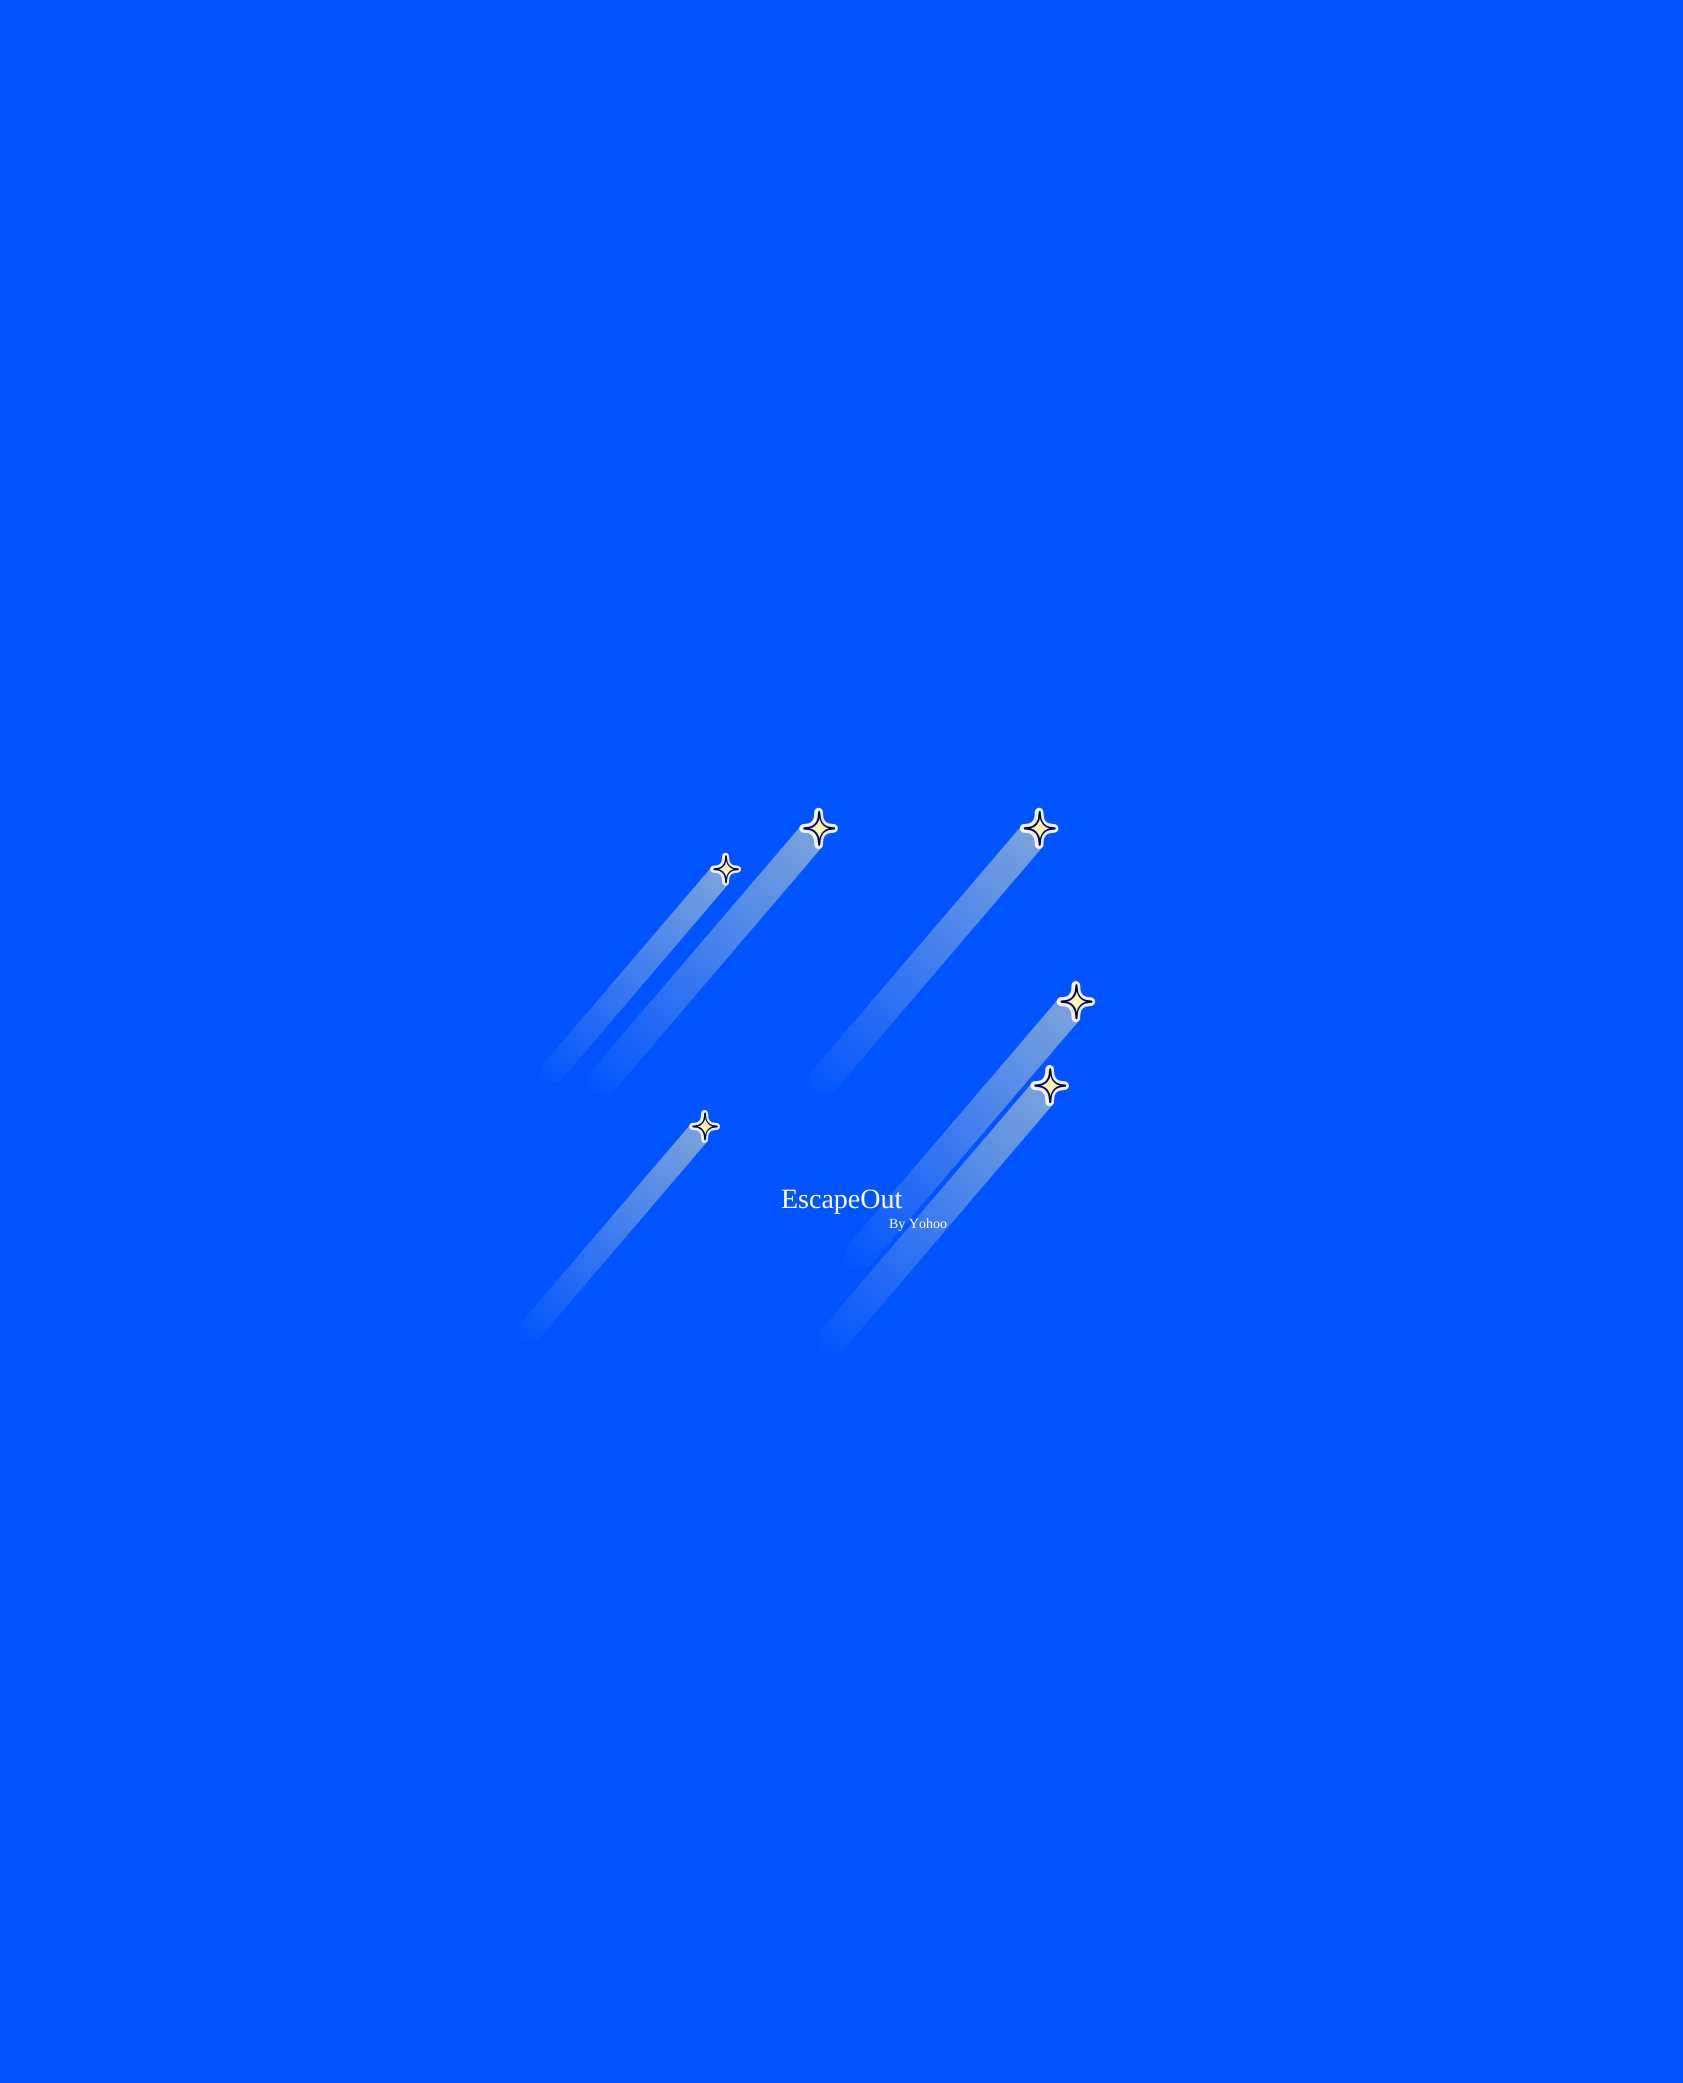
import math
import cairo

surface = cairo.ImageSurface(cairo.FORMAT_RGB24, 1683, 2083)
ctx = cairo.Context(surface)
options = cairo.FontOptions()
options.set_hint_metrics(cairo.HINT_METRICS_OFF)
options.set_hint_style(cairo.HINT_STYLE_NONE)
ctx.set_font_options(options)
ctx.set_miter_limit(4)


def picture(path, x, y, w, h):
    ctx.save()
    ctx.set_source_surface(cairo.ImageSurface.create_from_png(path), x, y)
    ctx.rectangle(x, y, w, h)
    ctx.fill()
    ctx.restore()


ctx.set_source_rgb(0, 0.329, 1)
ctx.paint()
picture("img1.png", 588, 807, 250, 287)
picture("img2.png", 809, 807, 250, 288)
picture("img3.png", 542, 852, 199, 230)
picture("img4.png", 845, 981, 251, 287)
picture("img5.png", 520, 1110, 200, 230)
picture("img6.png", 819, 1065, 250, 287)
ctx.select_font_face("Liberation Serif")
ctx.set_font_size(28)
ctx.set_source_rgb(1, 1, 1)
ctx.move_to(781, 1208)
ctx.show_text("EscapeOut")
ctx.set_font_size(14)
ctx.move_to(889, 1228)
ctx.show_text("By Yohoo")
surface.write_to_png("page.png")
